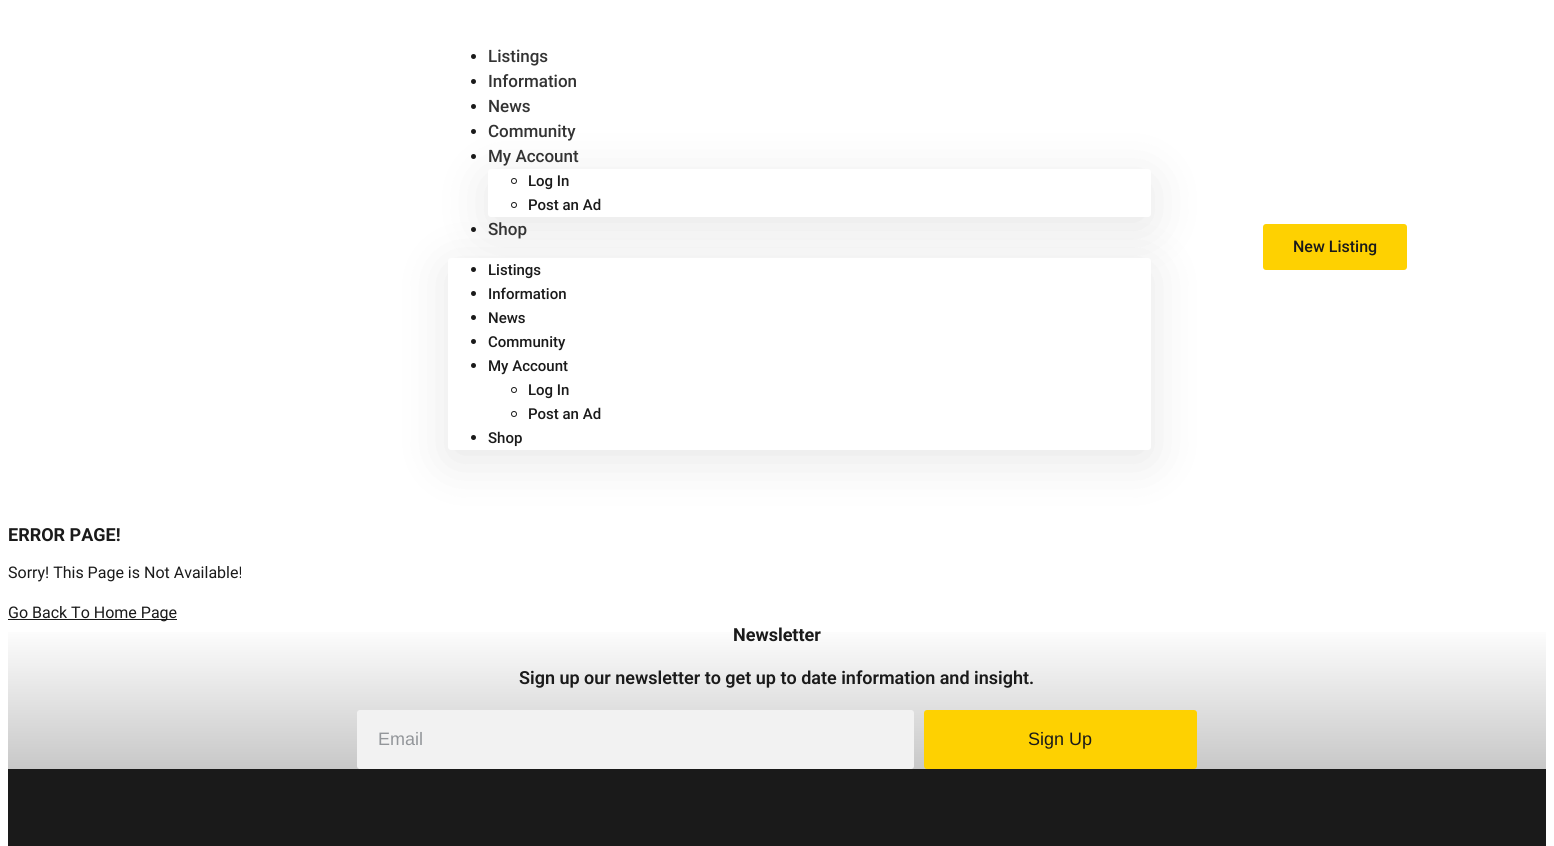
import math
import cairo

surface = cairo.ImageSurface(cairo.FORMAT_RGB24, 1554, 846)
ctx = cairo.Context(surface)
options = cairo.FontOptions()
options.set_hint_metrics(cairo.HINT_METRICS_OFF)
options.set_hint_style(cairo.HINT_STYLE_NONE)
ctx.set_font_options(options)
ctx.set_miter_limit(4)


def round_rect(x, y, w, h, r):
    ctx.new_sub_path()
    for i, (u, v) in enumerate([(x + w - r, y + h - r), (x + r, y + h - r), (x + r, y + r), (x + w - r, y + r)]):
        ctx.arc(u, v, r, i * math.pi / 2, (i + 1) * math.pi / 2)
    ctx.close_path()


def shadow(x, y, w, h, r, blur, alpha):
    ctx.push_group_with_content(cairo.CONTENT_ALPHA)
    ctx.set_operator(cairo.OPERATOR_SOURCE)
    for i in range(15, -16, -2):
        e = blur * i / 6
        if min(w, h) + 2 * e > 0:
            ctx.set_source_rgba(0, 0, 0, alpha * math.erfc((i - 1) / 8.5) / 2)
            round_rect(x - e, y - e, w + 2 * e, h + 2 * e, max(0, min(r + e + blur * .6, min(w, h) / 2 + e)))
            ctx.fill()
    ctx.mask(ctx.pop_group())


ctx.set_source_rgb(1, 1, 1)
ctx.paint()
ctx.set_source_rgb(0.102, 0.102, 0.102)
ctx.arc(473.5, 56.5, 2.5, 0, 2 * math.pi)
ctx.fill()
ctx.select_font_face("Roboto Medium")
ctx.set_font_size(17)
ctx.set_source_rgb(0.2, 0.2, 0.2)
ctx.move_to(488, 62)
ctx.show_text("Listings")
ctx.set_source_rgb(0.102, 0.102, 0.102)
ctx.new_path()
ctx.arc(473.5, 81.5, 2.5, 0, 2 * math.pi)
ctx.fill()
ctx.set_source_rgb(0.2, 0.2, 0.2)
ctx.move_to(488, 87)
ctx.show_text("Information")
ctx.set_source_rgb(0, 0, 0)
shadow(488, 179, 663, 48, 3, 25, 0.1)
ctx.set_source_rgb(0.102, 0.102, 0.102)
ctx.arc(473.5, 106.5, 2.5, 0, 2 * math.pi)
ctx.fill()
ctx.set_source_rgb(0.2, 0.2, 0.2)
ctx.move_to(488, 112)
ctx.show_text("News")
ctx.set_source_rgb(0.102, 0.102, 0.102)
ctx.new_path()
ctx.arc(473.5, 131.5, 2.5, 0, 2 * math.pi)
ctx.fill()
ctx.set_source_rgb(0.2, 0.2, 0.2)
ctx.move_to(488, 137)
ctx.show_text("Community")
ctx.set_source_rgb(0.102, 0.102, 0.102)
ctx.new_path()
ctx.arc(473.5, 156.5, 2.5, 0, 2 * math.pi)
ctx.fill()
ctx.set_source_rgb(0.2, 0.2, 0.2)
ctx.move_to(488, 162)
ctx.show_text("My Account")
ctx.set_source_rgb(1, 1, 1)
round_rect(488, 169, 663, 48, 3)
ctx.fill()
ctx.arc(514, 181, 2.5, 0, 2 * math.pi)
ctx.set_source_rgb(0.102, 0.102, 0.102)
ctx.set_line_width(1)
ctx.stroke()
ctx.set_font_size(15)
ctx.move_to(528, 186)
ctx.show_text("Log In")
ctx.set_source_rgb(0, 0, 0)
shadow(448, 268, 703, 192, 3, 25, 0.1)
ctx.arc(514, 205, 2.5, 0, 2 * math.pi)
ctx.set_source_rgb(0.102, 0.102, 0.102)
ctx.stroke()
ctx.move_to(528, 210)
ctx.show_text("Post an Ad")
ctx.new_path()
ctx.arc(473.5, 229.5, 2.5, 0, 2 * math.pi)
ctx.fill()
ctx.set_font_size(17)
ctx.set_source_rgb(0.2, 0.2, 0.2)
ctx.move_to(488, 235)
ctx.show_text("Shop")
ctx.set_source_rgb(1, 1, 1)
round_rect(448, 258, 703, 192, 3)
ctx.fill()
ctx.set_source_rgb(0.102, 0.102, 0.102)
ctx.arc(473.5, 269.5, 2.5, 0, 2 * math.pi)
ctx.fill()
ctx.set_font_size(15)
ctx.move_to(488, 275)
ctx.show_text("Listings")
ctx.new_path()
ctx.arc(473.5, 293.5, 2.5, 0, 2 * math.pi)
ctx.fill()
ctx.move_to(488, 299)
ctx.show_text("Information")
ctx.new_path()
ctx.arc(473.5, 317.5, 2.5, 0, 2 * math.pi)
ctx.fill()
ctx.move_to(488, 323)
ctx.show_text("News")
ctx.new_path()
ctx.arc(473.5, 341.5, 2.5, 0, 2 * math.pi)
ctx.fill()
ctx.move_to(488, 347)
ctx.show_text("Community")
ctx.new_path()
ctx.arc(473.5, 365.5, 2.5, 0, 2 * math.pi)
ctx.fill()
ctx.move_to(488, 371)
ctx.show_text("My Account")
ctx.new_path()
ctx.arc(514, 390, 2.5, 0, 2 * math.pi)
ctx.stroke()
ctx.move_to(528, 395)
ctx.show_text("Log In")
ctx.new_path()
ctx.arc(514, 414, 2.5, 0, 2 * math.pi)
ctx.stroke()
ctx.move_to(528, 419)
ctx.show_text("Post an Ad")
ctx.new_path()
ctx.arc(473.5, 437.5, 2.5, 0, 2 * math.pi)
ctx.fill()
ctx.move_to(488, 443)
ctx.show_text("Shop")
ctx.set_source_rgb(0.996, 0.82, 0.004)
round_rect(1263, 224, 144, 46, 3)
ctx.fill()
ctx.set_font_size(16)
ctx.set_source_rgb(0.102, 0.102, 0.102)
ctx.move_to(1293, 252)
ctx.show_text("New Listing")
ctx.select_font_face("Roboto", cairo.FONT_SLANT_NORMAL, cairo.FONT_WEIGHT_BOLD)
ctx.set_font_size(18)
ctx.move_to(8, 541)
ctx.show_text("ERROR PAGE!")
ctx.select_font_face("Roboto")
ctx.set_font_size(16)
ctx.move_to(8, 578)
ctx.show_text("Sorry! This Page is Not Available!")
ctx.rectangle(8, 619, 169, 1)
ctx.fill()
ctx.move_to(8, 618)
ctx.show_text("Go Back To Home Page")
gradient = cairo.LinearGradient(777, 625, 777, 769)
gradient.add_color_stop_rgba(0, 1, 1, 1, 1)
gradient.add_color_stop_rgba(1, 0.784, 0.784, 0.784, 1)
ctx.set_source(gradient)
ctx.rectangle(8, 632, 1538, 137)
ctx.fill()
ctx.select_font_face("Roboto", cairo.FONT_SLANT_NORMAL, cairo.FONT_WEIGHT_BOLD)
ctx.set_font_size(18)
ctx.set_source_rgb(0.102, 0.102, 0.102)
ctx.move_to(733, 641)
ctx.show_text("Newsletter")
ctx.select_font_face("Roboto SemiBold")
ctx.move_to(519, 684)
ctx.show_text("Sign up our newsletter to get up to date information and insight.")
ctx.set_source_rgb(0.949, 0.949, 0.949)
round_rect(357.5, 710.5, 556, 58, 2.5)
ctx.fill_preserve()
ctx.stroke()
ctx.select_font_face("Liberation Sans")
ctx.set_source_rgb(0.576, 0.588, 0.604)
ctx.move_to(378, 745)
ctx.show_text("Email")
ctx.set_source_rgb(0.996, 0.82, 0.004)
round_rect(924, 710, 273, 59, 3)
ctx.fill()
ctx.set_source_rgb(0.102, 0.102, 0.102)
ctx.move_to(1028, 745)
ctx.show_text("Sign Up")
ctx.rectangle(8, 769, 1538, 77)
ctx.fill()
surface.write_to_png("page.png")
